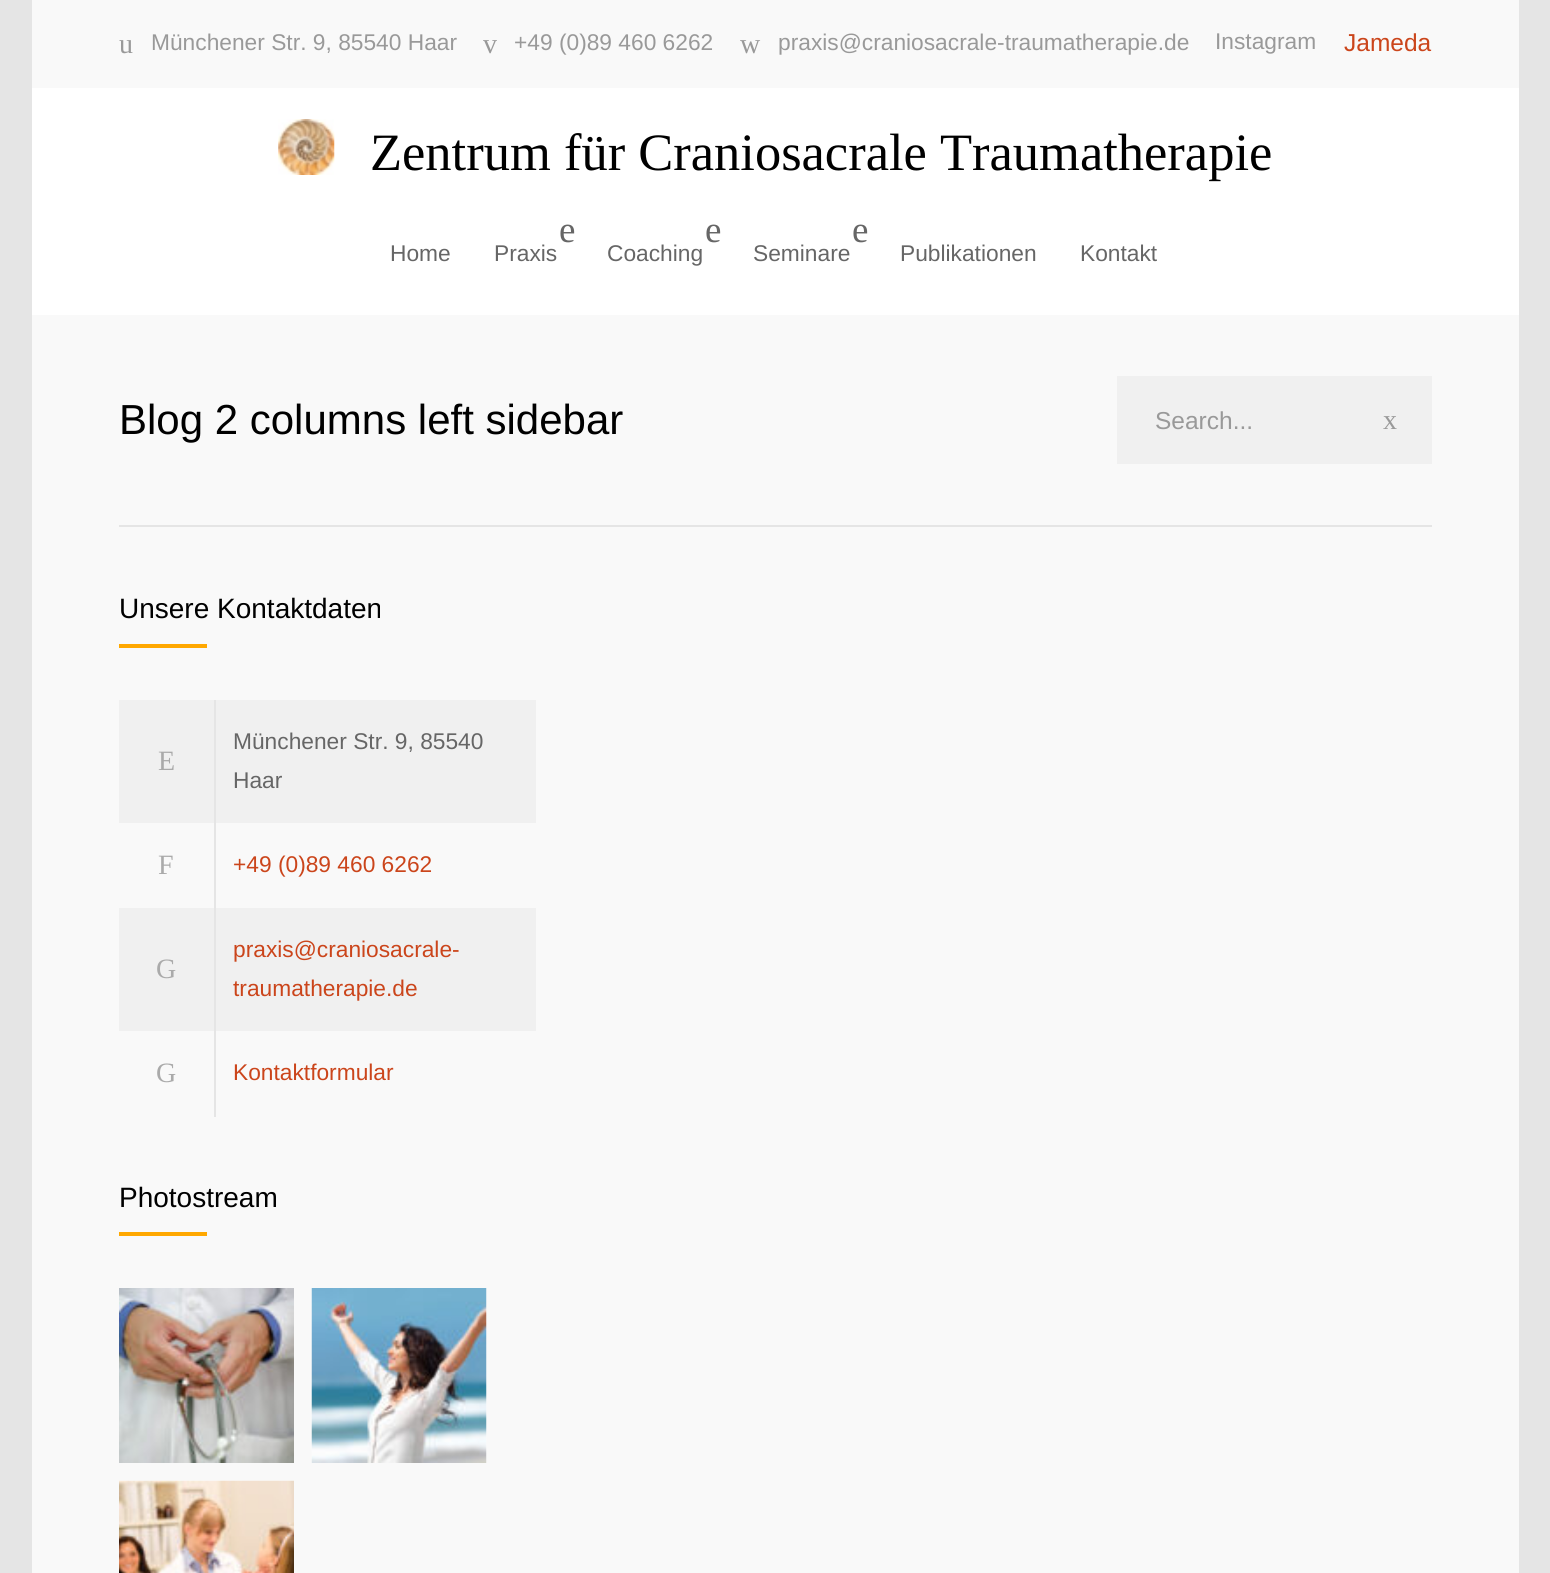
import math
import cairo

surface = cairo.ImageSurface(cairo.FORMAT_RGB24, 1550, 1573)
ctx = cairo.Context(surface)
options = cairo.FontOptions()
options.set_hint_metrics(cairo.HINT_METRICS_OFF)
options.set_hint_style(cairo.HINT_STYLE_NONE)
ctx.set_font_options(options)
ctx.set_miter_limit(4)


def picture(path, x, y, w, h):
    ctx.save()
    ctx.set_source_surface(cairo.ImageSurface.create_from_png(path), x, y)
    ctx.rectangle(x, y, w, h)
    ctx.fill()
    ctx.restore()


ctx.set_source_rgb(0.898, 0.898, 0.898)
ctx.paint()
ctx.set_source_rgb(0.973, 0.973, 0.973)
ctx.rectangle(32, 0, 1487, 1573)
ctx.fill()
ctx.select_font_face("Liberation Serif")
ctx.set_font_size(28)
ctx.set_source_rgb(0.6, 0.6, 0.6)
ctx.move_to(119, 53)
ctx.show_text("u")
ctx.select_font_face("Liberation Sans")
ctx.set_font_size(22.75)
ctx.move_to(151, 50)
ctx.show_text("Münchener Str. 9, 85540 Haar")
ctx.select_font_face("Liberation Serif")
ctx.set_font_size(28)
ctx.move_to(483, 53)
ctx.show_text("v")
ctx.select_font_face("Liberation Sans")
ctx.set_font_size(22.75)
ctx.move_to(514, 50)
ctx.show_text("+49 (0)89 460 6262")
ctx.select_font_face("Liberation Serif")
ctx.set_font_size(28)
ctx.move_to(740, 53)
ctx.show_text("w")
ctx.select_font_face("Liberation Sans")
ctx.set_font_size(22.75)
ctx.move_to(778, 50)
ctx.show_text("praxis@craniosacrale-traumatherapie.de")
ctx.move_to(1215, 49)
ctx.show_text("Instagram")
ctx.set_font_size(24.5)
ctx.set_source_rgb(0.796, 0.271, 0.106)
ctx.move_to(1344, 51)
ctx.show_text("Jameda")
ctx.set_source_rgb(1, 1, 1)
ctx.rectangle(32, 88, 1487, 227)
ctx.fill()
picture("img1.png", 278, 119, 57, 56)
ctx.select_font_face("Liberation Serif")
ctx.set_font_size(52.5)
ctx.set_source_rgb(0, 0, 0)
ctx.move_to(370, 170)
ctx.show_text("Zentrum für Craniosacrale Traumatherapie")
ctx.select_font_face("Liberation Sans")
ctx.set_font_size(22.75)
ctx.set_source_rgb(0.4, 0.4, 0.4)
ctx.move_to(390, 261)
ctx.show_text("Home")
ctx.select_font_face("Liberation Serif")
ctx.set_font_size(37)
ctx.move_to(559, 242)
ctx.show_text("e")
ctx.select_font_face("Liberation Sans")
ctx.set_font_size(22.75)
ctx.move_to(494, 261)
ctx.show_text("Praxis")
ctx.select_font_face("Liberation Serif")
ctx.set_font_size(37)
ctx.move_to(705, 242)
ctx.show_text("e")
ctx.select_font_face("Liberation Sans")
ctx.set_font_size(22.75)
ctx.move_to(607, 261)
ctx.show_text("Coaching")
ctx.select_font_face("Liberation Serif")
ctx.set_font_size(37)
ctx.move_to(852, 242)
ctx.show_text("e")
ctx.select_font_face("Liberation Sans")
ctx.set_font_size(22.75)
ctx.move_to(753, 261)
ctx.show_text("Seminare")
ctx.move_to(900, 261)
ctx.show_text("Publikationen")
ctx.move_to(1080, 261)
ctx.show_text("Kontakt")
ctx.set_source_rgb(0.898, 0.898, 0.898)
ctx.rectangle(119, 525, 1313, 2)
ctx.fill()
ctx.set_font_size(42)
ctx.set_source_rgb(0, 0, 0)
ctx.move_to(119, 434)
ctx.show_text("Blog 2 columns left sidebar")
ctx.set_source_rgb(0.941, 0.941, 0.941)
ctx.rectangle(1117, 376, 315, 88)
ctx.fill()
ctx.set_font_size(24.5)
ctx.set_source_rgb(0.6, 0.6, 0.6)
ctx.move_to(1155, 429)
ctx.show_text("Search...")
ctx.select_font_face("Liberation Serif")
ctx.set_font_size(28)
ctx.move_to(1383, 429)
ctx.show_text("x")
ctx.select_font_face("Liberation Sans")
ctx.set_source_rgb(0, 0, 0)
ctx.move_to(119, 618)
ctx.show_text("Unsere Kontaktdaten")
ctx.set_source_rgb(1, 0.659, 0)
ctx.rectangle(119, 644, 88, 4)
ctx.fill()
ctx.set_source_rgb(0.941, 0.941, 0.941)
ctx.rectangle(119, 700, 417, 123)
ctx.fill()
ctx.set_source_rgb(0.898, 0.898, 0.898)
ctx.rectangle(214, 700, 2, 208)
ctx.fill()
ctx.select_font_face("Liberation Serif")
ctx.set_source_rgb(0.667, 0.667, 0.667)
ctx.move_to(158, 770)
ctx.show_text("E")
ctx.select_font_face("Liberation Sans")
ctx.set_font_size(22.75)
ctx.set_source_rgb(0.4, 0.4, 0.4)
ctx.move_to(233, 749)
ctx.show_text("Münchener Str. 9, 85540")
ctx.move_to(233, 788)
ctx.show_text("Haar")
ctx.select_font_face("Liberation Serif")
ctx.set_font_size(28)
ctx.set_source_rgb(0.667, 0.667, 0.667)
ctx.move_to(158, 874)
ctx.show_text("F")
ctx.select_font_face("Liberation Sans")
ctx.set_font_size(22.75)
ctx.set_source_rgb(0.796, 0.271, 0.106)
ctx.move_to(233, 872)
ctx.show_text("+49 (0)89 460 6262")
ctx.set_source_rgb(0.941, 0.941, 0.941)
ctx.rectangle(119, 908, 417, 123)
ctx.fill()
ctx.set_source_rgb(0.898, 0.898, 0.898)
ctx.rectangle(214, 908, 2, 209)
ctx.fill()
ctx.select_font_face("Liberation Serif")
ctx.set_font_size(28)
ctx.set_source_rgb(0.667, 0.667, 0.667)
ctx.move_to(156, 978)
ctx.show_text("G")
ctx.select_font_face("Liberation Sans")
ctx.set_font_size(22.75)
ctx.set_source_rgb(0.796, 0.271, 0.106)
ctx.move_to(233, 957)
ctx.show_text("praxis@craniosacrale-")
ctx.move_to(233, 996)
ctx.show_text("traumatherapie.de")
ctx.select_font_face("Liberation Serif")
ctx.set_font_size(28)
ctx.set_source_rgb(0.667, 0.667, 0.667)
ctx.move_to(156, 1082)
ctx.show_text("G")
ctx.select_font_face("Liberation Sans")
ctx.set_font_size(22.75)
ctx.set_source_rgb(0.796, 0.271, 0.106)
ctx.move_to(233, 1080)
ctx.show_text("Kontaktformular")
ctx.set_font_size(28)
ctx.set_source_rgb(0, 0, 0)
ctx.move_to(119, 1207)
ctx.show_text("Photostream")
ctx.set_source_rgb(1, 0.659, 0)
ctx.rectangle(119, 1232, 88, 4)
ctx.fill()
picture("img2.png", 119, 1288, 175, 175)
picture("img3.png", 311, 1288, 176, 175)
picture("img4.png", 119, 1480, 175, 93)
surface.write_to_png("page.png")
